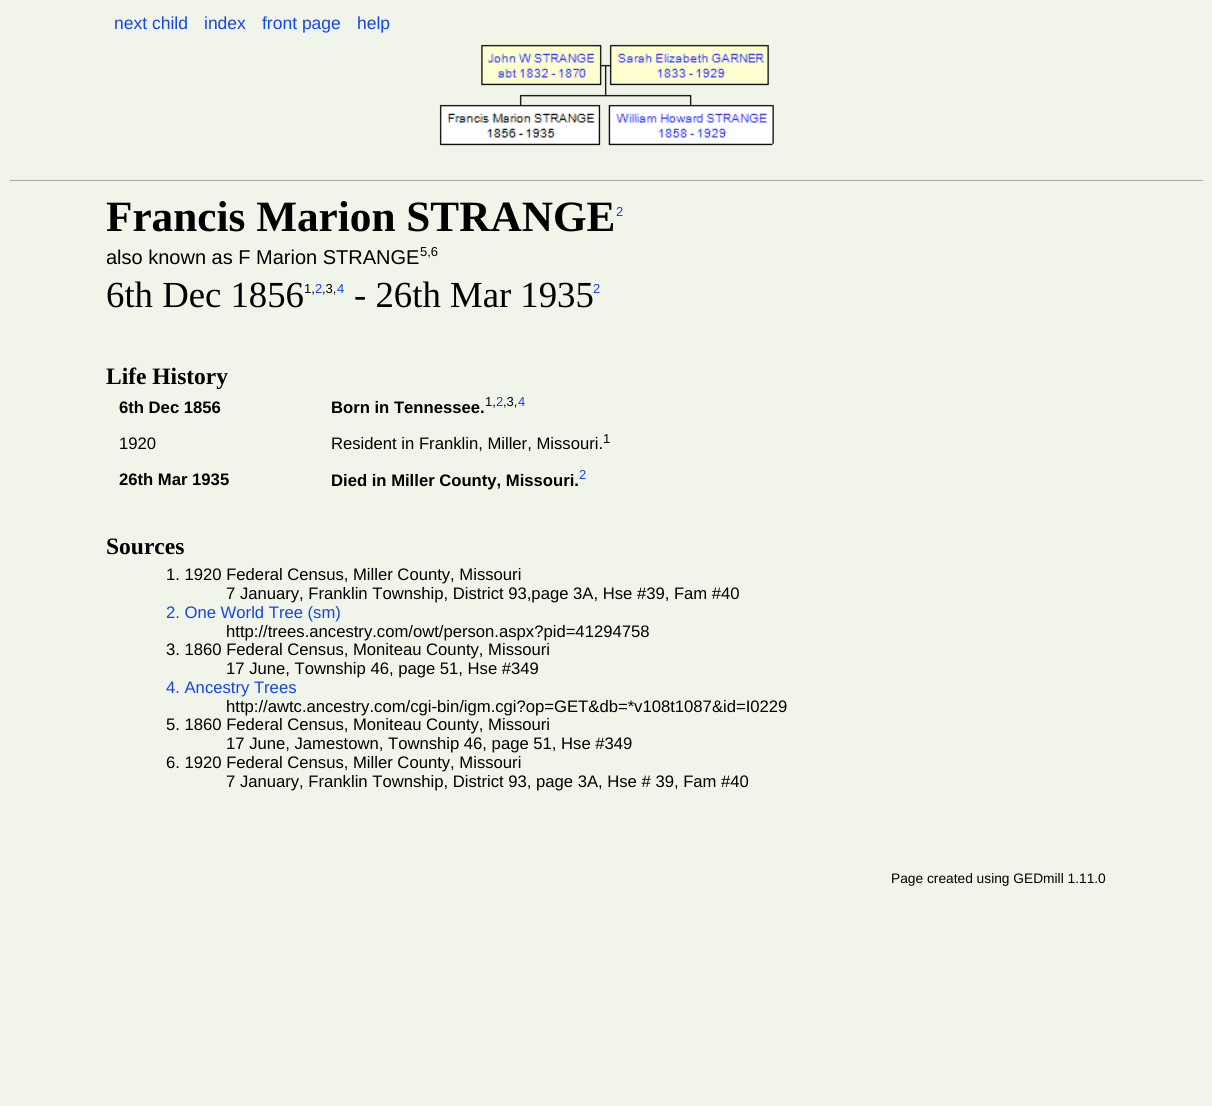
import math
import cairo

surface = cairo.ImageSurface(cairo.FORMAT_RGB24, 1212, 1106)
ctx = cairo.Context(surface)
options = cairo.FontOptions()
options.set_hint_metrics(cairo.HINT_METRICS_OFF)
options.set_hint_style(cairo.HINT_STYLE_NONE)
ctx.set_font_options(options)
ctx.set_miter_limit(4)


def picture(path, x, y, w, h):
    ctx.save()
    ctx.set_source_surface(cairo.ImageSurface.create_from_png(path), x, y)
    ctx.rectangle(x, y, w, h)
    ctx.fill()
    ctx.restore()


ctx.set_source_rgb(0.945, 0.957, 0.914)
ctx.paint()
ctx.select_font_face("Liberation Sans")
ctx.set_font_size(17.5)
ctx.set_source_rgb(0.075, 0.267, 0.914)
ctx.move_to(114, 29)
ctx.show_text("next child")
ctx.move_to(204, 29)
ctx.show_text("index")
ctx.move_to(262, 29)
ctx.show_text("front page")
ctx.move_to(357, 29)
ctx.show_text("help")
picture("img1.png", 439, 44, 335, 102)
ctx.set_source_rgb(0.933, 0.933, 0.933)
ctx.rectangle(10, 179, 1193, 1)
ctx.fill()
ctx.set_source_rgb(0.667, 0.667, 0.667)
ctx.rectangle(10, 180, 1193, 1)
ctx.fill()
ctx.select_font_face("Liberation Serif", cairo.FONT_SLANT_NORMAL, cairo.FONT_WEIGHT_BOLD)
ctx.set_font_size(43.25)
ctx.set_source_rgb(0, 0, 0)
ctx.move_to(106, 231)
ctx.show_text("Francis Marion STRANGE")
ctx.select_font_face("Liberation Sans")
ctx.set_font_size(13)
ctx.set_source_rgb(0.075, 0.267, 0.914)
ctx.move_to(616, 216)
ctx.show_text("2")
ctx.set_font_size(20)
ctx.set_source_rgb(0, 0, 0)
ctx.move_to(106, 264)
ctx.show_text("also known as F Marion STRANGE")
ctx.set_font_size(13)
ctx.move_to(420, 256)
ctx.show_text("5,6")
ctx.select_font_face("Liberation Serif")
ctx.set_font_size(36.75)
ctx.move_to(106, 307)
ctx.show_text("6th Dec 1856")
ctx.select_font_face("Liberation Sans")
ctx.set_font_size(13)
ctx.move_to(304, 293)
ctx.show_text("1,")
ctx.set_source_rgb(0.075, 0.267, 0.914)
ctx.move_to(315, 293)
ctx.show_text("2")
ctx.set_source_rgb(0, 0, 0)
ctx.move_to(322, 293)
ctx.show_text(",3,")
ctx.set_source_rgb(0.075, 0.267, 0.914)
ctx.move_to(337, 293)
ctx.show_text("4")
ctx.select_font_face("Liberation Serif")
ctx.set_font_size(36.75)
ctx.set_source_rgb(0, 0, 0)
ctx.move_to(354, 307)
ctx.show_text("- 26th Mar 1935")
ctx.select_font_face("Liberation Sans")
ctx.set_font_size(13)
ctx.set_source_rgb(0.075, 0.267, 0.914)
ctx.move_to(593, 293)
ctx.show_text("2")
ctx.select_font_face("Liberation Serif", cairo.FONT_SLANT_NORMAL, cairo.FONT_WEIGHT_BOLD)
ctx.set_font_size(23.5)
ctx.set_source_rgb(0, 0, 0)
ctx.move_to(106, 384)
ctx.show_text("Life History")
ctx.select_font_face("Liberation Sans", cairo.FONT_SLANT_NORMAL, cairo.FONT_WEIGHT_BOLD)
ctx.set_font_size(16.65)
ctx.move_to(119, 413)
ctx.show_text("6th Dec 1856")
ctx.move_to(331, 413)
ctx.show_text("Born in Tennessee.")
ctx.select_font_face("Liberation Sans")
ctx.set_font_size(13)
ctx.move_to(485, 406)
ctx.show_text("1,")
ctx.set_source_rgb(0.075, 0.267, 0.914)
ctx.move_to(496, 406)
ctx.show_text("2")
ctx.set_source_rgb(0, 0, 0)
ctx.move_to(503, 406)
ctx.show_text(",3,")
ctx.set_source_rgb(0.075, 0.267, 0.914)
ctx.move_to(518, 406)
ctx.show_text("4")
ctx.set_font_size(16.65)
ctx.set_source_rgb(0, 0, 0)
ctx.move_to(119, 449)
ctx.show_text("1920")
ctx.move_to(331, 449)
ctx.show_text("Resident in Franklin, Miller, Missouri.")
ctx.set_font_size(13)
ctx.move_to(603, 443)
ctx.show_text("1")
ctx.select_font_face("Liberation Sans", cairo.FONT_SLANT_NORMAL, cairo.FONT_WEIGHT_BOLD)
ctx.set_font_size(16.65)
ctx.move_to(119, 485)
ctx.show_text("26th Mar 1935")
ctx.move_to(331, 486)
ctx.show_text("Died in Miller County, Missouri.")
ctx.select_font_face("Liberation Sans")
ctx.set_font_size(13)
ctx.set_source_rgb(0.075, 0.267, 0.914)
ctx.move_to(579, 479)
ctx.show_text("2")
ctx.select_font_face("Liberation Serif", cairo.FONT_SLANT_NORMAL, cairo.FONT_WEIGHT_BOLD)
ctx.set_font_size(23.5)
ctx.set_source_rgb(0, 0, 0)
ctx.move_to(106, 554)
ctx.show_text("Sources")
ctx.select_font_face("Liberation Sans")
ctx.set_font_size(16.65)
ctx.move_to(166, 580)
ctx.show_text("1. 1920 Federal Census, Miller County, Missouri")
ctx.move_to(226, 599)
ctx.show_text("7 January, Franklin Township, District 93,page 3A, Hse #39, Fam #40")
ctx.set_source_rgb(0.075, 0.267, 0.914)
ctx.move_to(166, 618)
ctx.show_text("2. One World Tree (sm)")
ctx.set_source_rgb(0, 0, 0)
ctx.move_to(226, 637)
ctx.show_text("http://trees.ancestry.com/owt/person.aspx?pid=41294758")
ctx.move_to(166, 655)
ctx.show_text("3. 1860 Federal Census, Moniteau County, Missouri")
ctx.move_to(226, 674)
ctx.show_text("17 June, Township 46, page 51, Hse #349")
ctx.set_source_rgb(0.075, 0.267, 0.914)
ctx.move_to(166, 693)
ctx.show_text("4. Ancestry Trees")
ctx.set_source_rgb(0, 0, 0)
ctx.move_to(226, 712)
ctx.show_text("http://awtc.ancestry.com/cgi-bin/igm.cgi?op=GET&db=*v108t1087&id=I0229")
ctx.move_to(166, 730)
ctx.show_text("5. 1860 Federal Census, Moniteau County, Missouri")
ctx.move_to(226, 749)
ctx.show_text("17 June, Jamestown, Township 46, page 51, Hse #349")
ctx.move_to(166, 768)
ctx.show_text("6. 1920 Federal Census, Miller County, Missouri")
ctx.move_to(226, 787)
ctx.show_text("7 January, Franklin Township, District 93, page 3A, Hse # 39, Fam #40")
ctx.set_font_size(13.75)
ctx.move_to(891, 883)
ctx.show_text("Page created using GEDmill 1.11.0")
surface.write_to_png("page.png")
